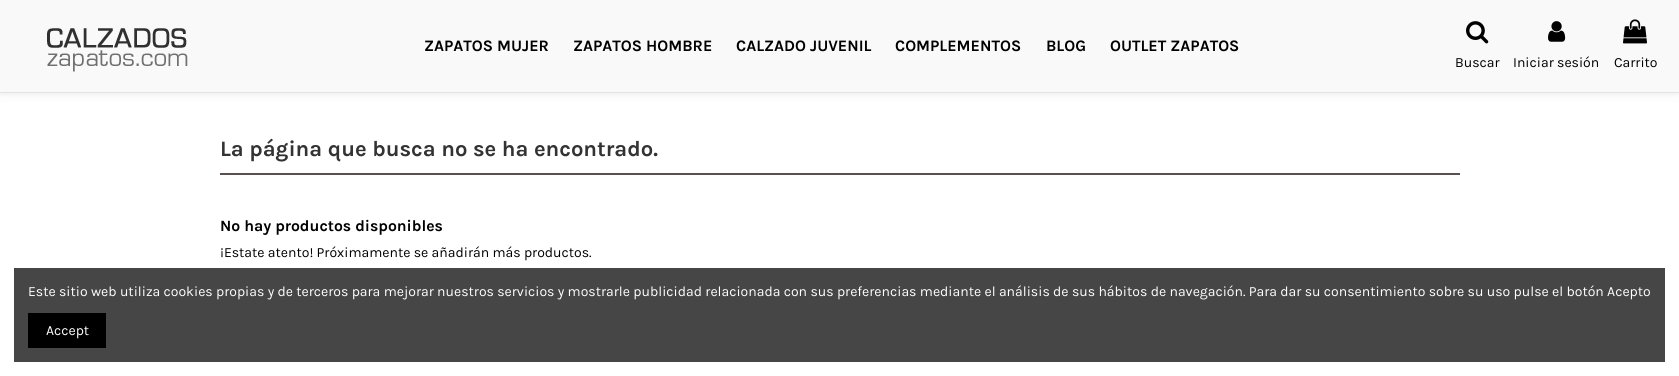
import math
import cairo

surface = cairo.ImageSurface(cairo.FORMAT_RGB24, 1679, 376)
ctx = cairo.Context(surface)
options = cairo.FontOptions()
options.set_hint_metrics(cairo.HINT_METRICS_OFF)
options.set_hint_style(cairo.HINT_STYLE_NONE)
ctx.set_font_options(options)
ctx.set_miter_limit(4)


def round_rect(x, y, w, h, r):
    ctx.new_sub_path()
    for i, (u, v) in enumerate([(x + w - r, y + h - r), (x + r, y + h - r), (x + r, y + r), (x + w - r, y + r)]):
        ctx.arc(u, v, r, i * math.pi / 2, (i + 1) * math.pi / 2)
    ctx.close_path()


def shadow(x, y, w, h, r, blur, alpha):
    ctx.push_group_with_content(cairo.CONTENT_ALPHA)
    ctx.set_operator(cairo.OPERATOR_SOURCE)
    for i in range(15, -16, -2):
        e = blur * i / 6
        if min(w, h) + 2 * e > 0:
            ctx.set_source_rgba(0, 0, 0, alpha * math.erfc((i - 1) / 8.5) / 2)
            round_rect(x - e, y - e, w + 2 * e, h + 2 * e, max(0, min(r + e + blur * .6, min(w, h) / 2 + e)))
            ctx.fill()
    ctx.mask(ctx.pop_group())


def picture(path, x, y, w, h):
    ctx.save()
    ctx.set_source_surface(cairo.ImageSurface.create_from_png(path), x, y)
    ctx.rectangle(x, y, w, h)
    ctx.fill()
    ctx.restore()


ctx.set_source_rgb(1, 1, 1)
ctx.paint()
ctx.set_source_rgb(0.239, 0.224, 0.224)
shadow(0, -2, 1679, 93, 0, 5.5, 0.17)
ctx.set_source_rgb(0.973, 0.973, 0.973)
ctx.rectangle(0, 0, 1679, 92)
ctx.fill()
ctx.set_source_rgb(0.89, 0.89, 0.89)
ctx.rectangle(0, 92, 1679, 1)
ctx.fill()
picture("img1.png", 47, 28, 141, 44)
ctx.select_font_face("Karla", cairo.FONT_SLANT_NORMAL, cairo.FONT_WEIGHT_BOLD)
ctx.set_font_size(16)
ctx.set_source_rgb(0, 0, 0)
ctx.move_to(424, 51)
ctx.show_text("ZAPATOS MUJER")
ctx.move_to(573, 51)
ctx.show_text("ZAPATOS HOMBRE")
ctx.move_to(736, 51)
ctx.show_text("CALZADO JUVENIL")
ctx.move_to(895, 51)
ctx.show_text("COMPLEMENTOS")
ctx.move_to(1046, 51)
ctx.show_text("BLOG")
ctx.move_to(1110, 51)
ctx.show_text("OUTLET ZAPATOS")
picture("img2.png", 1466, 21, 23, 23)
ctx.select_font_face("Karla")
ctx.set_font_size(14)
ctx.move_to(1455, 67)
ctx.show_text("Buscar")
picture("img3.png", 1548, 21, 18, 21)
ctx.move_to(1513, 67)
ctx.show_text("Iniciar sesión")
picture("img4.png", 1623, 19, 24, 25)
ctx.move_to(1614, 67)
ctx.show_text("Carrito")
ctx.set_source_rgb(0.349, 0.314, 0.314)
ctx.rectangle(220, 173, 1240, 2)
ctx.fill()
ctx.select_font_face("Karla", cairo.FONT_SLANT_NORMAL, cairo.FONT_WEIGHT_BOLD)
ctx.set_font_size(22)
ctx.set_source_rgb(0.2, 0.2, 0.2)
ctx.move_to(220, 156)
ctx.show_text("La página que busca no se ha encontrado.")
ctx.set_font_size(15.75)
ctx.set_source_rgb(0, 0, 0)
ctx.move_to(220, 231)
ctx.show_text("No hay productos disponibles")
ctx.select_font_face("Karla")
ctx.set_font_size(14)
ctx.move_to(220, 257)
ctx.show_text("¡Estate atento! Próximamente se añadirán más productos.")
ctx.set_source_rgb(0.275, 0.275, 0.275)
ctx.rectangle(14, 268, 1651, 94)
ctx.fill()
ctx.set_source_rgb(1, 1, 1)
ctx.move_to(28, 296)
ctx.show_text("Este sitio web utiliza cookies propias y de terceros para mejorar nuestros servicios y mostrarle publicidad relacionada con sus preferencias mediante el análisis de sus hábitos de navegación. Para dar su consentimiento sobre su uso pulse el botón Acepto")
ctx.set_source_rgb(0, 0, 0)
ctx.rectangle(28, 313, 78, 35)
ctx.fill()
ctx.set_source_rgb(1, 1, 1)
ctx.move_to(46, 335)
ctx.show_text("Accept")
surface.write_to_png("page.png")
